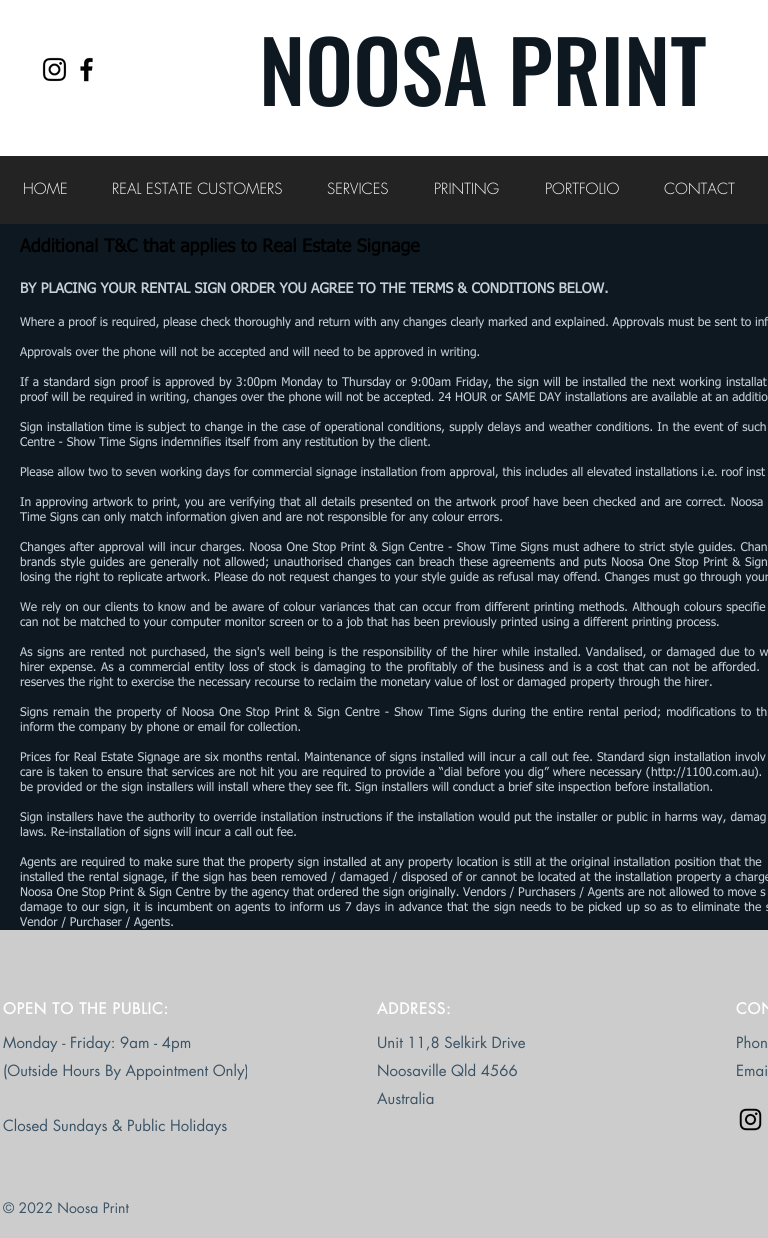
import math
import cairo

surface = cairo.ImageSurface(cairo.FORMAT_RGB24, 768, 1238)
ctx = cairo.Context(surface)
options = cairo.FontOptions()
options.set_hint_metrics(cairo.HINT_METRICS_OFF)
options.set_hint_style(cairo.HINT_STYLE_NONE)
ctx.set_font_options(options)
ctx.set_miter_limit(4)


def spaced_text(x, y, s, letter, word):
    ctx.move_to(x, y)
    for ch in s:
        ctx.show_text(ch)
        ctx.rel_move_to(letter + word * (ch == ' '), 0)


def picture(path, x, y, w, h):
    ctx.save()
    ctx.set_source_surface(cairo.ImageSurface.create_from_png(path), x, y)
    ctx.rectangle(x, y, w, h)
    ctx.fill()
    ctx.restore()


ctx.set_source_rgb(0.055, 0.094, 0.129)
ctx.paint()
ctx.set_source_rgb(1, 1, 1)
ctx.rectangle(0, 0, 768, 156)
ctx.fill()
picture("img1.png", 42, 57, 25, 25)
picture("img2.png", 80, 57, 13, 25)
ctx.select_font_face("Oswald Medium")
ctx.set_font_size(85)
ctx.set_source_rgb(0.055, 0.094, 0.129)
ctx.move_to(259, 106)
ctx.show_text("NOOSA PRINT")
ctx.set_source_rgb(0.141, 0.137, 0.137)
ctx.rectangle(0, 156, 768, 68)
ctx.fill()
ctx.select_font_face("futura Light")
ctx.set_font_size(15)
ctx.set_source_rgb(1, 1, 1)
ctx.move_to(23, 194)
ctx.show_text("HOME")
ctx.move_to(112, 194)
ctx.show_text("REAL ESTATE CUSTOMERS")
ctx.move_to(327, 194)
ctx.show_text("SERVICES")
ctx.move_to(434, 194)
ctx.show_text("PRINTING")
ctx.move_to(545, 194)
ctx.show_text("PORTFOLIO")
ctx.move_to(664, 194)
ctx.show_text("CONTACT")
ctx.select_font_face("tahoma", cairo.FONT_SLANT_NORMAL, cairo.FONT_WEIGHT_BOLD)
ctx.set_font_size(18)
ctx.set_source_rgb(0, 0, 0)
ctx.move_to(20, 252)
ctx.show_text("Additional T&C that applies to Real Estate Signage")
ctx.set_font_size(14)
ctx.set_source_rgb(0.773, 0.816, 0.851)
ctx.move_to(20, 293)
ctx.show_text("BY PLACING YOUR RENTAL SIGN ORDER YOU AGREE TO THE TERMS & CONDITIONS BELOW.")
ctx.select_font_face("tahoma")
ctx.set_font_size(12)
ctx.move_to(20, 326)
ctx.show_text("Where a proof is required, please check thoroughly and return with any changes clearly marked and explained. Approvals must be sent to inf")
ctx.move_to(20, 356)
ctx.show_text("Approvals over the phone will not be accepted and will need to be approved in writing.")
spaced_text(20, 386, "If a standard sign proof is approved by 3:00pm Monday to Thursday or 9:00am Friday, the sign will be installed the next working installat", 0, 0.75)
ctx.move_to(20, 401)
ctx.show_text("proof will be required in writing, changes over the phone will not be accepted. 24 HOUR or SAME DAY installations are available at an additio")
spaced_text(20, 431, "Sign installation time is subject to change in the case of operational conditions, supply delays and weather conditions. In the event of such", 0, 0.5)
ctx.move_to(20, 446)
ctx.show_text("Centre - Show Time Signs indemnifies itself from any restitution by the client.")
ctx.move_to(20, 476)
ctx.show_text("Please allow two to seven working days for commercial signage installation from approval, this includes all elevated installations i.e. roof inst")
spaced_text(20, 506, "In approving artwork to print, you are verifying that all details presented on the artwork proof have been checked and are correct. Noosa", 0, 0.7)
ctx.move_to(20, 521)
ctx.show_text("Time Signs can only match information given and are not responsible for any colour errors.")
spaced_text(20, 551, "Changes after approval will incur charges. Noosa One Stop Print & Sign Centre - Show Time Signs must adhere to strict style guides. Chan", 0, 0.6)
spaced_text(20, 566, "brands style guides are generally not allowed; unauthorised changes can breach these agreements and puts Noosa One Stop Print & Sign", 0, 0.9)
ctx.move_to(20, 581)
ctx.show_text("losing the right to replicate artwork. Please do not request changes to your style guide as refusal may offend. Changes must go through your")
spaced_text(20, 611, "We rely on our clients to know and be aware of colour variances that can occur from different printing methods. Although colours specifie", 0, 0.7)
ctx.move_to(20, 626)
ctx.show_text("can not be matched to your computer monitor screen or to a job that has been previously printed using a different printing process.")
spaced_text(20, 656, "As signs are rented not purchased, the sign's well being is the responsibility of the hirer while installed. Vandalised, or damaged due to w", 0, 0.9)
spaced_text(20, 671, "hirer expense. As a commercial entity loss of stock is damaging to the profitably of the business and is a cost that can not be afforded.", 0, 1)
ctx.move_to(20, 686)
ctx.show_text("reserves the right to exercise the necessary recourse to reclaim the monetary value of lost or damaged property through the hirer.")
spaced_text(20, 716, "Signs remain the property of Noosa One Stop Print & Sign Centre - Show Time Signs during the entire rental period; modifications to th", 0, 1.25)
ctx.move_to(20, 731)
ctx.show_text("inform the company by phone or email for collection.")
spaced_text(20, 761, "Prices for Real Estate Signage are six months rental. Maintenance of signs installed will incur a call out fee. Standard sign installation involv", 0, 0.35)
spaced_text(20, 776, "care is taken to ensure that services are not hit you are required to provide a “dial before you dig” where necessary (", 0, 0.4)
ctx.move_to(651, 776)
ctx.show_text("http://1100.com.au")
spaced_text(754, 776, ").", 0, 0.4)
ctx.move_to(20, 791)
ctx.show_text("be provided or the sign installers will install where they see fit. Sign installers will conduct a brief site inspection before installation.")
spaced_text(20, 821, "Sign installers have the authority to override installation instructions if the installation would put the installer or public in harms way, damag", 0, 0.25)
ctx.move_to(20, 836)
ctx.show_text("laws. Re-installation of signs will incur a call out fee.")
spaced_text(20, 866, "Agents are required to make sure that the property sign installed at any property location is still at the original installation position that the", 0, 0.25)
spaced_text(20, 881, "installed the rental signage, if the sign has been removed / damaged / disposed of or cannot be located at the installation property a charge", 0, 0.3)
ctx.move_to(20, 896)
ctx.show_text("Noosa One Stop Print & Sign Centre by the agency that ordered the sign originally. Vendors / Purchasers / Agents are not allowed to move s")
spaced_text(20, 911, "damage to our sign, it is incumbent on agents to inform us 7 days in advance that the sign needs to be picked up so as to eliminate the s", 0, 0.75)
ctx.move_to(20, 926)
ctx.show_text("Vendor / Purchaser / Agents.")
ctx.set_source_rgb(0.8, 0.8, 0.8)
ctx.rectangle(0, 930, 768, 308)
ctx.fill()
ctx.select_font_face("futura", cairo.FONT_SLANT_NORMAL, cairo.FONT_WEIGHT_BOLD)
ctx.set_font_size(15)
ctx.set_source_rgb(1, 1, 1)
spaced_text(3, 1014, "OPEN TO THE PUBLIC:", 0.75, 0)
spaced_text(377, 1014, "ADDRESS:", 0.75, 0)
spaced_text(736, 1014, "CON", 0.75, 0)
ctx.select_font_face("futura")
ctx.set_source_rgb(0.224, 0.322, 0.392)
ctx.move_to(3, 1048)
ctx.show_text("Monday - Friday: 9am - 4pm")
ctx.move_to(3, 1076)
ctx.show_text("(Outside Hours By Appointment Only)")
ctx.move_to(3, 1131)
ctx.show_text("Closed Sundays & Public Holidays")
ctx.move_to(377, 1048)
ctx.show_text("Unit 11,8 Selkirk Drive")
ctx.move_to(377, 1076)
ctx.show_text("Noosaville Qld 4566")
ctx.move_to(377, 1104)
ctx.show_text("Australia")
ctx.move_to(736, 1048)
ctx.show_text("Phon")
ctx.move_to(736, 1076)
ctx.show_text("Emai")
picture("img3.png", 739, 1108, 23, 23)
ctx.set_font_size(14)
ctx.move_to(3, 1213)
ctx.show_text("© 2022 Noosa Print")
surface.write_to_png("page.png")
